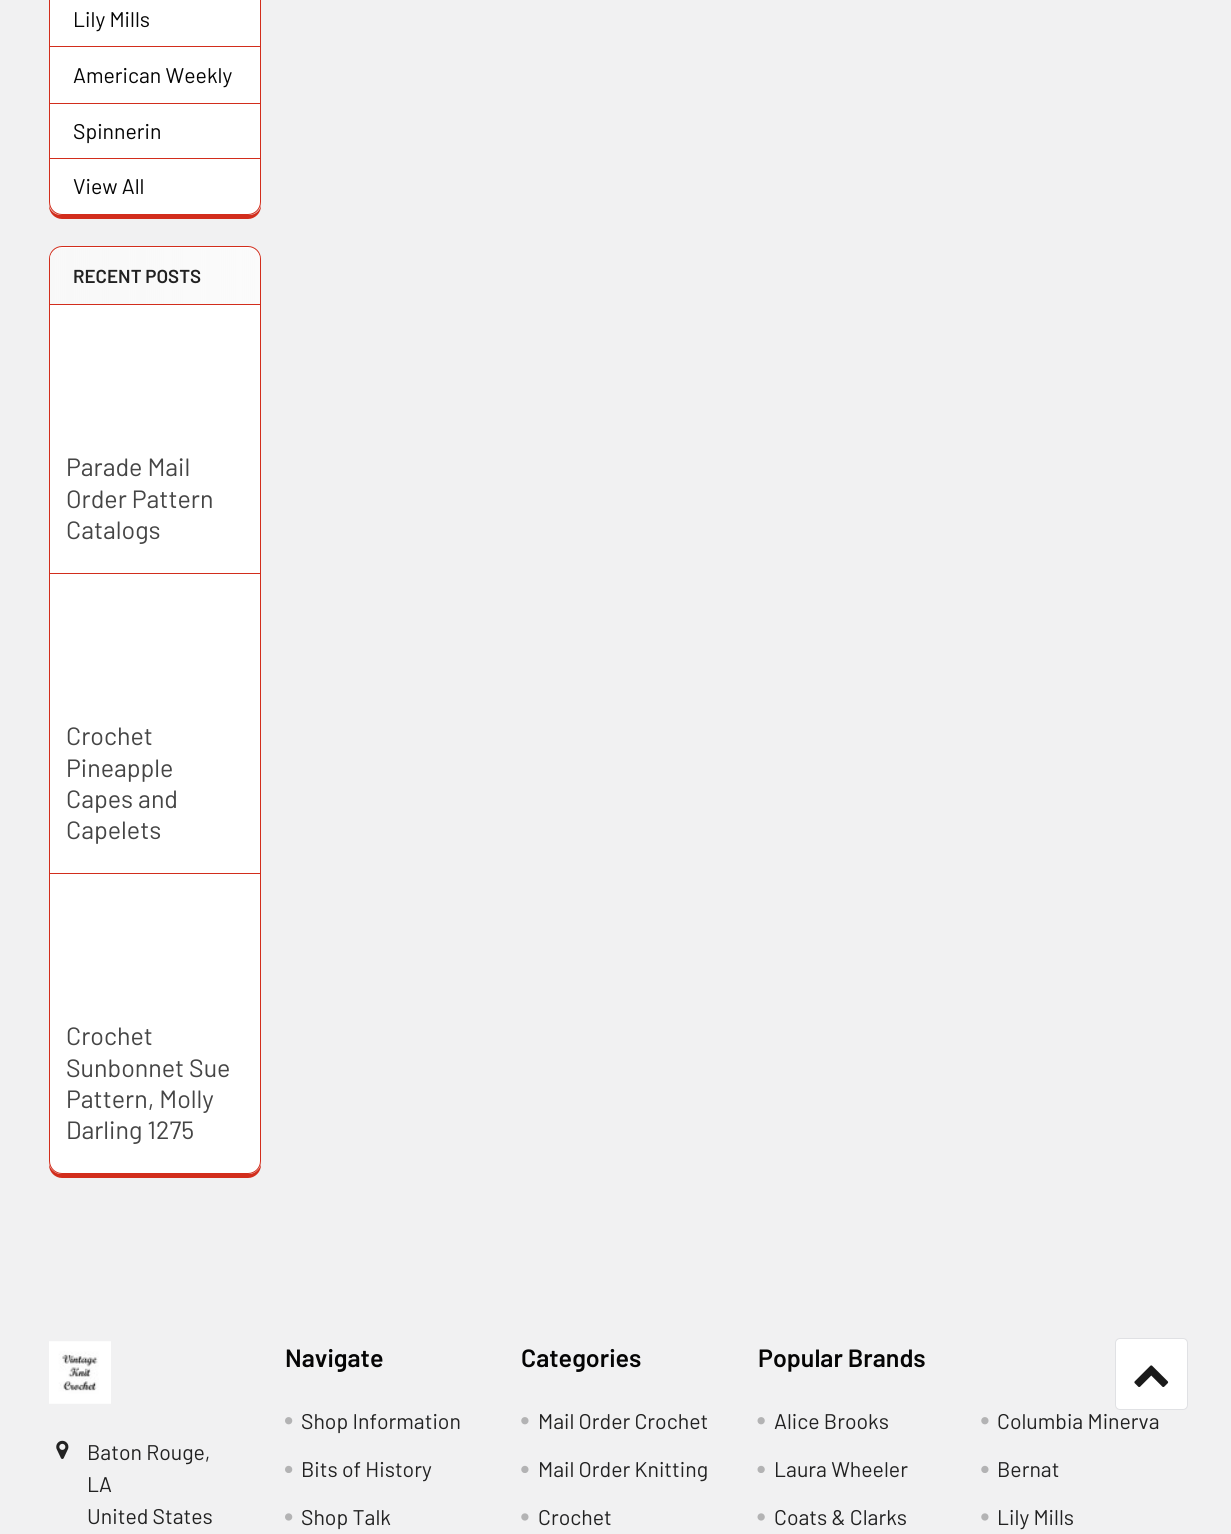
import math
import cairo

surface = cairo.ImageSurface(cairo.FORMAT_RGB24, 1231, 1534)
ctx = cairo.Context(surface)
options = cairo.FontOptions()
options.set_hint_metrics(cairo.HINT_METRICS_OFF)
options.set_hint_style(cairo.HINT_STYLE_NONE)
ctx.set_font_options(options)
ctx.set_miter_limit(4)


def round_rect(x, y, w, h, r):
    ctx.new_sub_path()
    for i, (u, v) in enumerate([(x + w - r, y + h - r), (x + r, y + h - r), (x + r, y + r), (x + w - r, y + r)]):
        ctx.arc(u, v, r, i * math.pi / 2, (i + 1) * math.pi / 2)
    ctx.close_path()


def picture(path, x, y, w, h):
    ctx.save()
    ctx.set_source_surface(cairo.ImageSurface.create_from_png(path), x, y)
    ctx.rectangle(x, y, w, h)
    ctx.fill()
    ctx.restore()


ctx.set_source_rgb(0.945, 0.945, 0.949)
ctx.paint()
ctx.set_source_rgb(0.824, 0.176, 0.11)
ctx.new_path()
ctx.move_to(49, 205)
ctx.line_to(49, 206)
ctx.curve_to(49, 213, 55, 219, 62, 219)
ctx.line_to(248, 219)
ctx.curve_to(255, 219, 261, 213, 261, 206)
ctx.line_to(261, 205)
ctx.curve_to(260, 211, 255, 215, 249, 215)
ctx.line_to(61, 215)
ctx.curve_to(55, 215, 50, 211, 49, 205)
ctx.close_path()
ctx.fill()
ctx.set_source_rgb(1, 1, 1)
round_rect(49.5, -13.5, 211, 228, 12.5)
ctx.fill_preserve()
ctx.set_source_rgb(0.824, 0.176, 0.11)
ctx.set_line_width(1)
ctx.stroke()
ctx.select_font_face("Barlow")
ctx.set_font_size(21.25)
ctx.set_source_rgb(0.02, 0.02, 0.02)
ctx.move_to(73, 27)
ctx.show_text("Lily Mills")
ctx.set_source_rgb(0.824, 0.176, 0.11)
ctx.rectangle(50, 46, 210, 1)
ctx.fill()
ctx.set_source_rgb(0.02, 0.02, 0.02)
ctx.move_to(73, 83)
ctx.show_text("American Weekly")
ctx.set_source_rgb(0.824, 0.176, 0.11)
ctx.rectangle(50, 103, 210, 1)
ctx.fill()
ctx.set_source_rgb(0.02, 0.02, 0.02)
ctx.move_to(73, 139)
ctx.show_text("Spinnerin")
ctx.set_source_rgb(0.824, 0.176, 0.11)
ctx.rectangle(50, 158, 210, 1)
ctx.fill()
ctx.set_source_rgb(0.02, 0.02, 0.02)
ctx.move_to(73, 194)
ctx.show_text("View All")
ctx.set_source_rgb(0.824, 0.176, 0.11)
ctx.new_path()
ctx.move_to(49, 1164)
ctx.line_to(49, 1165)
ctx.curve_to(49, 1172, 55, 1178, 62, 1178)
ctx.line_to(248, 1178)
ctx.curve_to(255, 1178, 261, 1172, 261, 1165)
ctx.line_to(261, 1164)
ctx.curve_to(260, 1169, 255, 1174, 249, 1174)
ctx.line_to(61, 1174)
ctx.curve_to(55, 1174, 50, 1169, 49, 1164)
ctx.close_path()
ctx.fill()
ctx.set_source_rgb(1, 1, 1)
round_rect(49.5, 246.5, 211, 927, 12.5)
ctx.fill_preserve()
ctx.set_source_rgb(0.824, 0.176, 0.11)
ctx.stroke()
gradient = cairo.LinearGradient(50, 276, 260, 276)
gradient.add_color_stop_rgba(0, 0.973, 0.973, 0.973, 1)
gradient.add_color_stop_rgba(1, 0.973, 0.973, 0.973, 0.6)
ctx.set_source(gradient)
ctx.new_path()
ctx.move_to(61, 248)
ctx.line_to(249, 248)
ctx.curve_to(255, 248, 260, 253, 260, 259)
ctx.line_to(260, 305)
ctx.line_to(50, 305)
ctx.line_to(50, 259)
ctx.curve_to(50, 253, 55, 248, 61, 248)
ctx.close_path()
ctx.fill()
ctx.set_source_rgb(0.824, 0.176, 0.11)
ctx.rectangle(50, 304, 210, 1)
ctx.fill()
ctx.select_font_face("Barlow SemiBold")
ctx.set_font_size(18.75)
ctx.set_source_rgb(0.133, 0.133, 0.133)
ctx.move_to(73, 283)
ctx.show_text("RECENT POSTS")
ctx.select_font_face("Barlow")
ctx.set_font_size(25)
ctx.set_source_rgb(0.271, 0.271, 0.271)
ctx.move_to(66, 476)
ctx.show_text("Parade Mail")
ctx.move_to(66, 508)
ctx.show_text("Order Pattern")
ctx.move_to(66, 539)
ctx.show_text("Catalogs")
ctx.set_source_rgb(0.824, 0.176, 0.11)
ctx.rectangle(50, 573, 210, 1)
ctx.fill()
ctx.set_source_rgb(0.271, 0.271, 0.271)
ctx.move_to(66, 745)
ctx.show_text("Crochet")
ctx.move_to(66, 777)
ctx.show_text("Pineapple")
ctx.move_to(66, 808)
ctx.show_text("Capes and")
ctx.move_to(66, 839)
ctx.show_text("Capelets")
ctx.set_source_rgb(0.824, 0.176, 0.11)
ctx.rectangle(50, 873, 210, 1)
ctx.fill()
ctx.set_source_rgb(0.271, 0.271, 0.271)
ctx.move_to(66, 1045)
ctx.show_text("Crochet")
ctx.move_to(66, 1077)
ctx.show_text("Sunbonnet Sue")
ctx.move_to(66, 1108)
ctx.show_text("Pattern, Molly")
ctx.move_to(66, 1139)
ctx.show_text("Darling 1275")
ctx.set_source_rgb(1, 1, 1)
round_rect(1115.5, 1338.5, 72, 71, 4.5)
ctx.fill_preserve()
ctx.set_source_rgb(0.878, 0.882, 0.894)
ctx.stroke()
picture("img1.png", 1134, 1365, 35, 22)
picture("img2.png", 49, 1341, 62, 63)
picture("img3.png", 56, 1440, 13, 19)
ctx.set_font_size(21.25)
ctx.set_source_rgb(0.133, 0.133, 0.133)
ctx.move_to(87, 1460)
ctx.show_text("Baton Rouge,")
ctx.move_to(87, 1492)
ctx.show_text("LA")
ctx.move_to(87, 1524)
ctx.show_text("United States")
ctx.select_font_face("Barlow SemiBold")
ctx.set_font_size(25)
ctx.set_source_rgb(0.02, 0.02, 0.02)
ctx.move_to(285, 1367)
ctx.show_text("Navigate")
picture("img4.png", 285, 1417, 8, 8)
ctx.select_font_face("Barlow")
ctx.set_font_size(21.25)
ctx.set_source_rgb(0.133, 0.133, 0.133)
ctx.move_to(301, 1429)
ctx.show_text("Shop Information")
picture("img5.png", 285, 1465, 8, 8)
ctx.move_to(301, 1477)
ctx.show_text("Bits of History")
picture("img6.png", 285, 1513, 8, 8)
ctx.move_to(301, 1525)
ctx.show_text("Shop Talk")
ctx.select_font_face("Barlow SemiBold")
ctx.set_font_size(25)
ctx.set_source_rgb(0.02, 0.02, 0.02)
ctx.move_to(521, 1367)
ctx.show_text("Categories")
picture("img7.png", 521, 1417, 8, 8)
ctx.select_font_face("Barlow")
ctx.set_font_size(21.25)
ctx.set_source_rgb(0.133, 0.133, 0.133)
ctx.move_to(538, 1429)
ctx.show_text("Mail Order Crochet")
picture("img8.png", 521, 1465, 8, 8)
ctx.move_to(538, 1477)
ctx.show_text("Mail Order Knitting")
picture("img9.png", 521, 1513, 8, 8)
ctx.move_to(538, 1525)
ctx.show_text("Crochet")
ctx.select_font_face("Barlow SemiBold")
ctx.set_font_size(25)
ctx.set_source_rgb(0.02, 0.02, 0.02)
ctx.move_to(758, 1367)
ctx.show_text("Popular Brands")
picture("img10.png", 757, 1417, 8, 8)
ctx.select_font_face("Barlow")
ctx.set_font_size(21.25)
ctx.set_source_rgb(0.133, 0.133, 0.133)
ctx.move_to(774, 1429)
ctx.show_text("Alice Brooks")
picture("img7.png", 981, 1417, 8, 8)
ctx.move_to(997, 1429)
ctx.show_text("Columbia Minerva")
picture("img11.png", 757, 1465, 8, 8)
ctx.move_to(774, 1477)
ctx.show_text("Laura Wheeler")
picture("img8.png", 981, 1465, 8, 8)
ctx.move_to(997, 1477)
ctx.show_text("Bernat")
picture("img12.png", 757, 1513, 8, 8)
ctx.move_to(774, 1525)
ctx.show_text("Coats & Clarks")
picture("img9.png", 981, 1513, 8, 8)
ctx.move_to(997, 1525)
ctx.show_text("Lily Mills")
surface.write_to_png("page.png")
